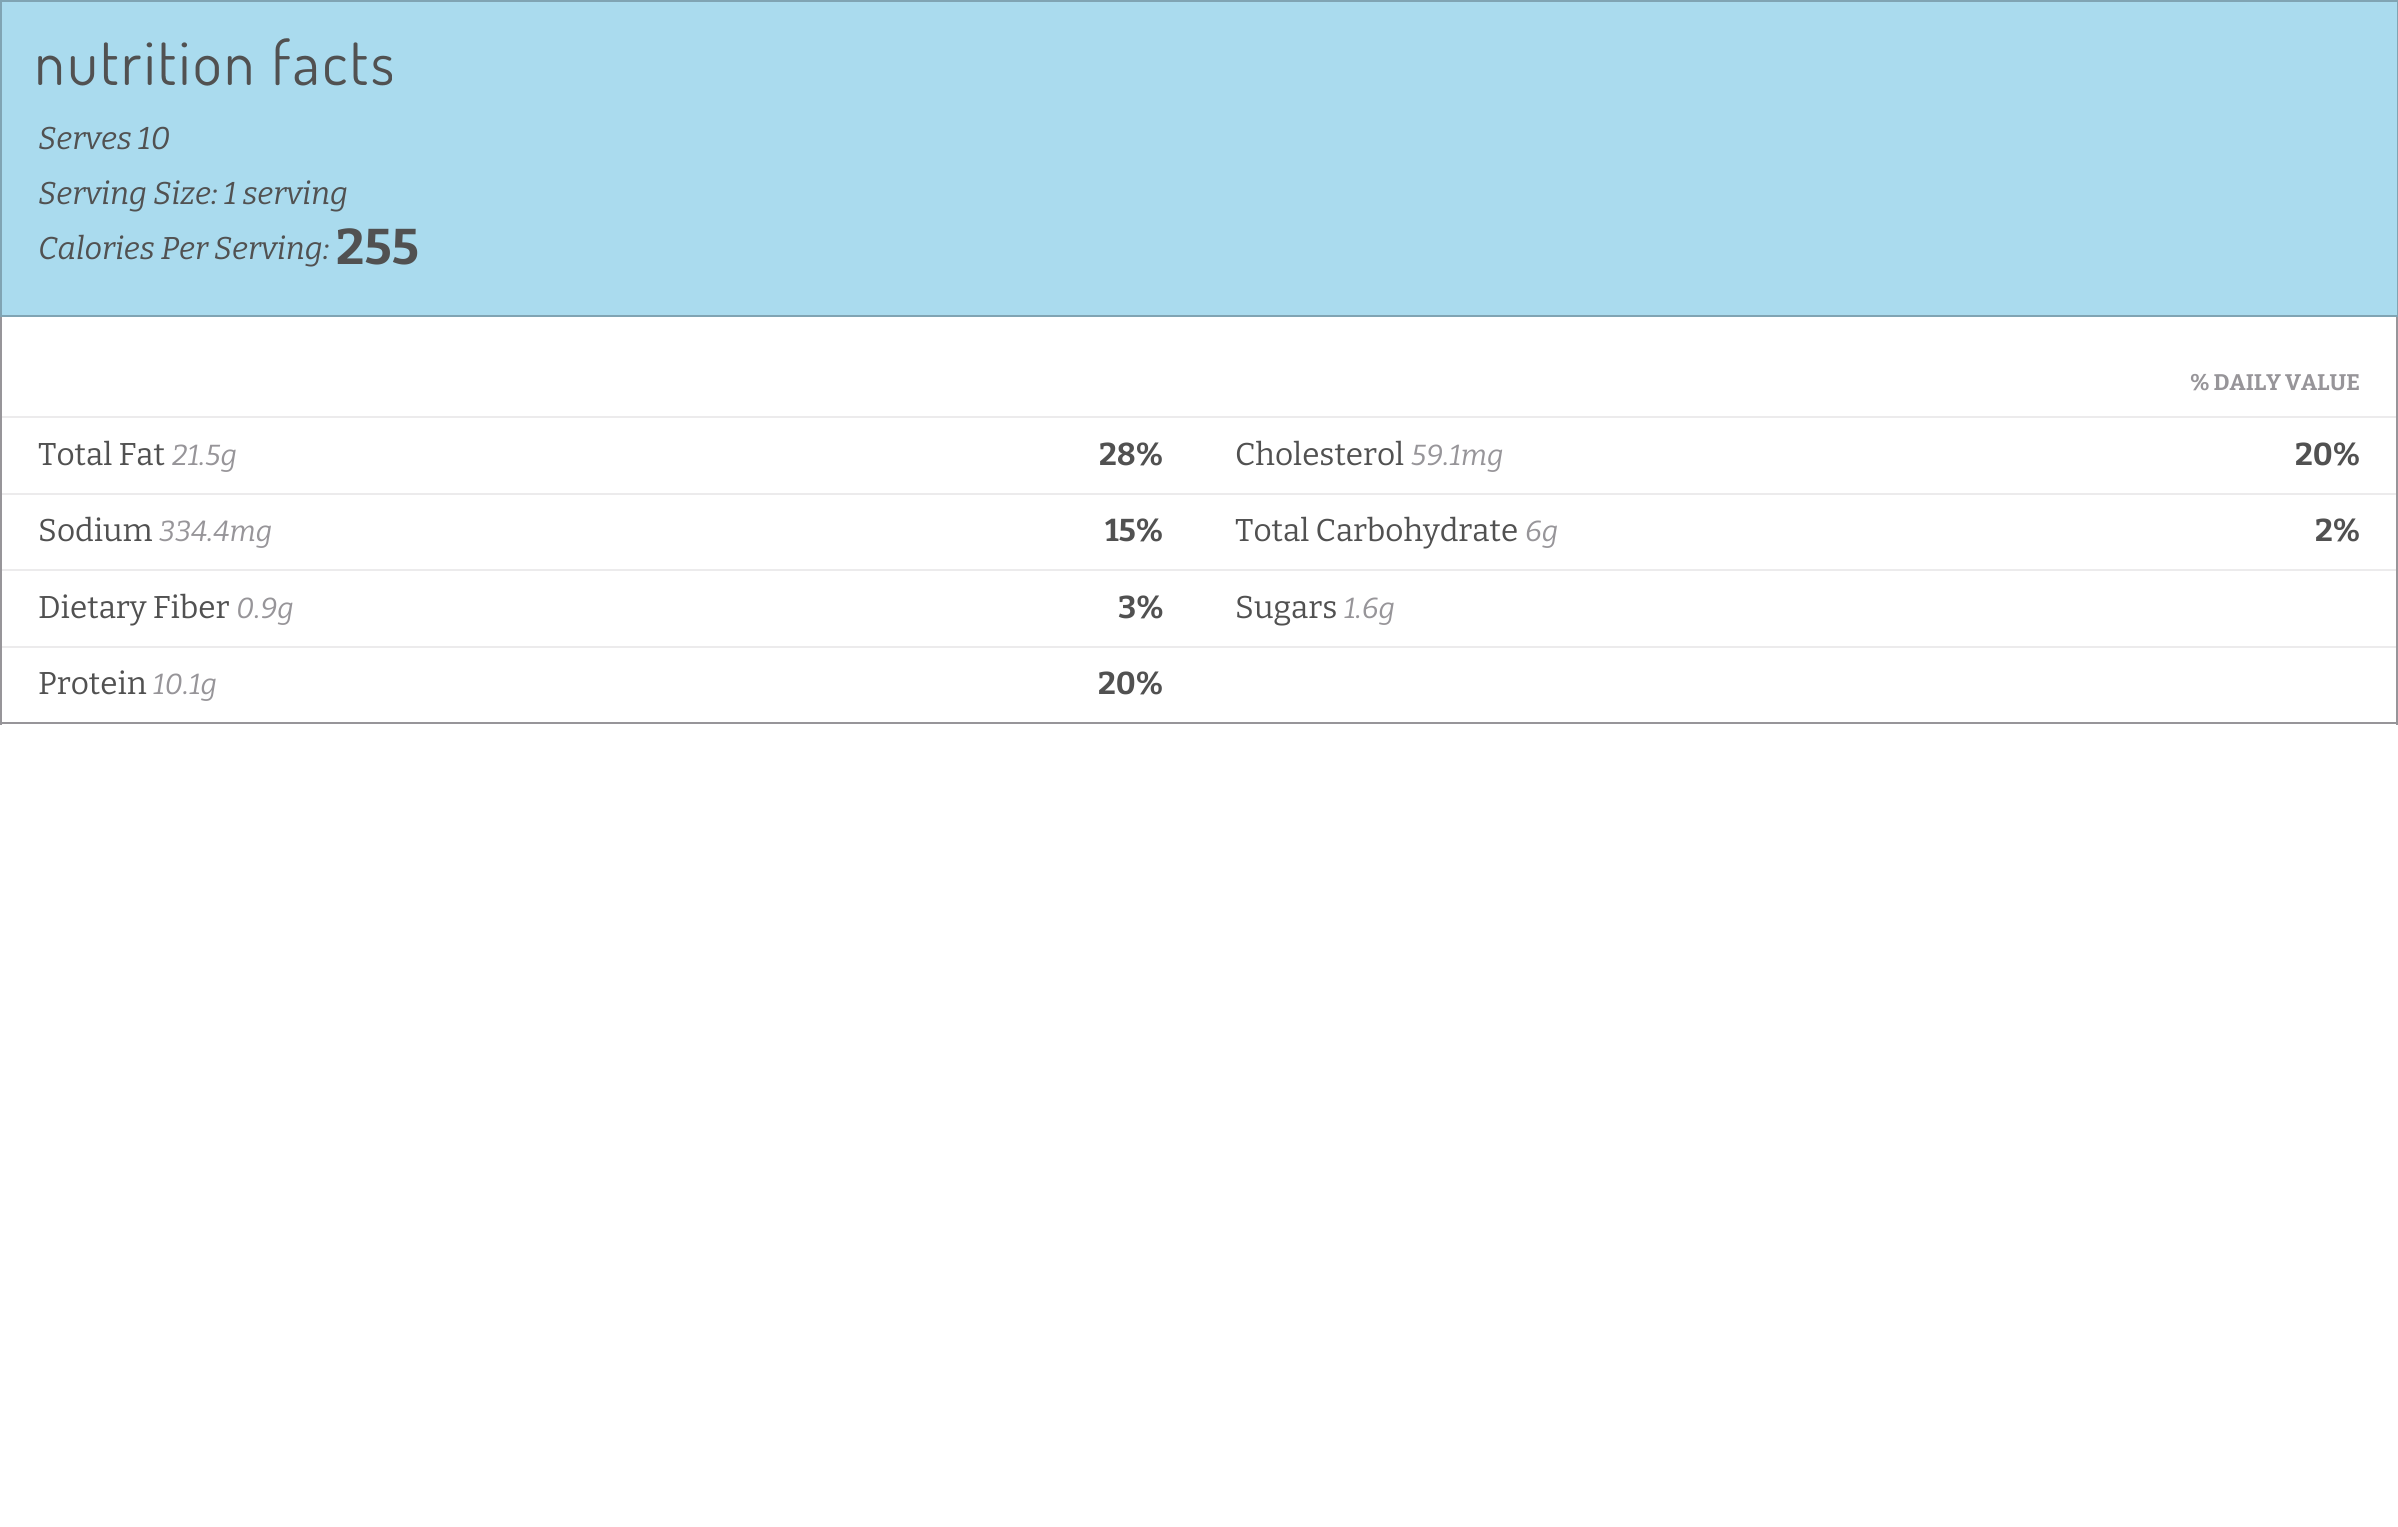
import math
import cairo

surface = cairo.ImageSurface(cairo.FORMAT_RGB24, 2398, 1527)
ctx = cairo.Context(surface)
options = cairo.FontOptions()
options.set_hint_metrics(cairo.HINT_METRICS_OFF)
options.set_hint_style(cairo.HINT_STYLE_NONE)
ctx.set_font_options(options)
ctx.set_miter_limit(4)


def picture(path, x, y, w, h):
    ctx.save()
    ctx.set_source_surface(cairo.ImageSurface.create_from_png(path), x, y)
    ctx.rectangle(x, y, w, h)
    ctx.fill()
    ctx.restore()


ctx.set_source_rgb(1, 1, 1)
ctx.paint()
ctx.set_source_rgb(0.667, 0.859, 0.933)
ctx.rectangle(1, 1, 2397, 315)
ctx.fill_preserve()
ctx.set_source_rgb(0.502, 0.643, 0.702)
ctx.stroke()
picture("img1.png", 38, 38, 354, 48)
ctx.select_font_face("Bitter Thin", cairo.FONT_SLANT_ITALIC)
ctx.set_font_size(31.5)
ctx.set_source_rgb(0.318, 0.318, 0.318)
ctx.move_to(38, 149)
ctx.show_text("Serves 10")
ctx.move_to(38, 204)
ctx.show_text("Serving Size: 1 serving")
ctx.move_to(38, 259)
ctx.show_text("Calories Per Serving:")
ctx.select_font_face("Bitter", cairo.FONT_SLANT_NORMAL, cairo.FONT_WEIGHT_BOLD)
ctx.set_font_size(50)
ctx.move_to(336, 264)
ctx.show_text("255")
ctx.set_source_rgb(0.592, 0.584, 0.6)
ctx.rectangle(2396, 317, 2, 408)
ctx.fill()
ctx.rectangle(0, 722, 2398, 2)
ctx.fill()
ctx.rectangle(0, 317, 2, 408)
ctx.fill()
ctx.set_font_size(22.5)
ctx.move_to(2190, 390)
ctx.show_text("% DAILY VALUE")
ctx.set_source_rgb(0.922, 0.918, 0.922)
ctx.rectangle(2, 416, 2394, 2)
ctx.fill()
ctx.select_font_face("Bitter")
ctx.set_font_size(31.5)
ctx.set_source_rgb(0.318, 0.318, 0.318)
ctx.move_to(38, 465)
ctx.show_text("Total Fat")
ctx.select_font_face("Bitter Thin", cairo.FONT_SLANT_ITALIC)
ctx.set_font_size(29)
ctx.set_source_rgb(0.592, 0.584, 0.6)
ctx.move_to(172, 465)
ctx.show_text("21.5g")
ctx.select_font_face("Bitter", cairo.FONT_SLANT_NORMAL, cairo.FONT_WEIGHT_BOLD)
ctx.set_font_size(31.5)
ctx.set_source_rgb(0.318, 0.318, 0.318)
ctx.move_to(1099, 465)
ctx.show_text("28%")
ctx.select_font_face("Bitter")
ctx.move_to(1235, 465)
ctx.show_text("Cholesterol")
ctx.select_font_face("Bitter Thin", cairo.FONT_SLANT_ITALIC)
ctx.set_font_size(29)
ctx.set_source_rgb(0.592, 0.584, 0.6)
ctx.move_to(1411, 465)
ctx.show_text("59.1mg")
ctx.select_font_face("Bitter", cairo.FONT_SLANT_NORMAL, cairo.FONT_WEIGHT_BOLD)
ctx.set_font_size(31.5)
ctx.set_source_rgb(0.318, 0.318, 0.318)
ctx.move_to(2295, 465)
ctx.show_text("20%")
ctx.set_source_rgb(0.922, 0.918, 0.922)
ctx.rectangle(2, 493, 2394, 2)
ctx.fill()
ctx.select_font_face("Bitter")
ctx.set_source_rgb(0.318, 0.318, 0.318)
ctx.move_to(38, 541)
ctx.show_text("Sodium")
ctx.select_font_face("Bitter Thin", cairo.FONT_SLANT_ITALIC)
ctx.set_font_size(29)
ctx.set_source_rgb(0.592, 0.584, 0.6)
ctx.move_to(159, 541)
ctx.show_text("334.4mg")
ctx.select_font_face("Bitter", cairo.FONT_SLANT_NORMAL, cairo.FONT_WEIGHT_BOLD)
ctx.set_font_size(31.5)
ctx.set_source_rgb(0.318, 0.318, 0.318)
ctx.move_to(1105, 541)
ctx.show_text("15%")
ctx.select_font_face("Bitter")
ctx.move_to(1235, 541)
ctx.show_text("Total Carbohydrate")
ctx.select_font_face("Bitter Thin", cairo.FONT_SLANT_ITALIC)
ctx.set_font_size(29)
ctx.set_source_rgb(0.592, 0.584, 0.6)
ctx.move_to(1525, 541)
ctx.show_text("6g")
ctx.select_font_face("Bitter", cairo.FONT_SLANT_NORMAL, cairo.FONT_WEIGHT_BOLD)
ctx.set_font_size(31.5)
ctx.set_source_rgb(0.318, 0.318, 0.318)
ctx.move_to(2315, 541)
ctx.show_text("2%")
ctx.set_source_rgb(0.922, 0.918, 0.922)
ctx.rectangle(2, 569, 2394, 2)
ctx.fill()
ctx.select_font_face("Bitter")
ctx.set_source_rgb(0.318, 0.318, 0.318)
ctx.move_to(38, 618)
ctx.show_text("Dietary Fiber")
ctx.select_font_face("Bitter Thin", cairo.FONT_SLANT_ITALIC)
ctx.set_font_size(29)
ctx.set_source_rgb(0.592, 0.584, 0.6)
ctx.move_to(236, 618)
ctx.show_text("0.9g")
ctx.select_font_face("Bitter", cairo.FONT_SLANT_NORMAL, cairo.FONT_WEIGHT_BOLD)
ctx.set_font_size(31.5)
ctx.set_source_rgb(0.318, 0.318, 0.318)
ctx.move_to(1118, 618)
ctx.show_text("3%")
ctx.select_font_face("Bitter")
ctx.move_to(1235, 618)
ctx.show_text("Sugars")
ctx.select_font_face("Bitter Thin", cairo.FONT_SLANT_ITALIC)
ctx.set_font_size(29)
ctx.set_source_rgb(0.592, 0.584, 0.6)
ctx.move_to(1344, 618)
ctx.show_text("1.6g")
ctx.set_source_rgb(0.922, 0.918, 0.922)
ctx.rectangle(2, 646, 2394, 2)
ctx.fill()
ctx.select_font_face("Bitter")
ctx.set_font_size(31.5)
ctx.set_source_rgb(0.318, 0.318, 0.318)
ctx.move_to(38, 694)
ctx.show_text("Protein")
ctx.select_font_face("Bitter Thin", cairo.FONT_SLANT_ITALIC)
ctx.set_font_size(29)
ctx.set_source_rgb(0.592, 0.584, 0.6)
ctx.move_to(153, 694)
ctx.show_text("10.1g")
ctx.select_font_face("Bitter", cairo.FONT_SLANT_NORMAL, cairo.FONT_WEIGHT_BOLD)
ctx.set_font_size(31.5)
ctx.set_source_rgb(0.318, 0.318, 0.318)
ctx.move_to(1098, 694)
ctx.show_text("20%")
surface.write_to_png("page.png")
